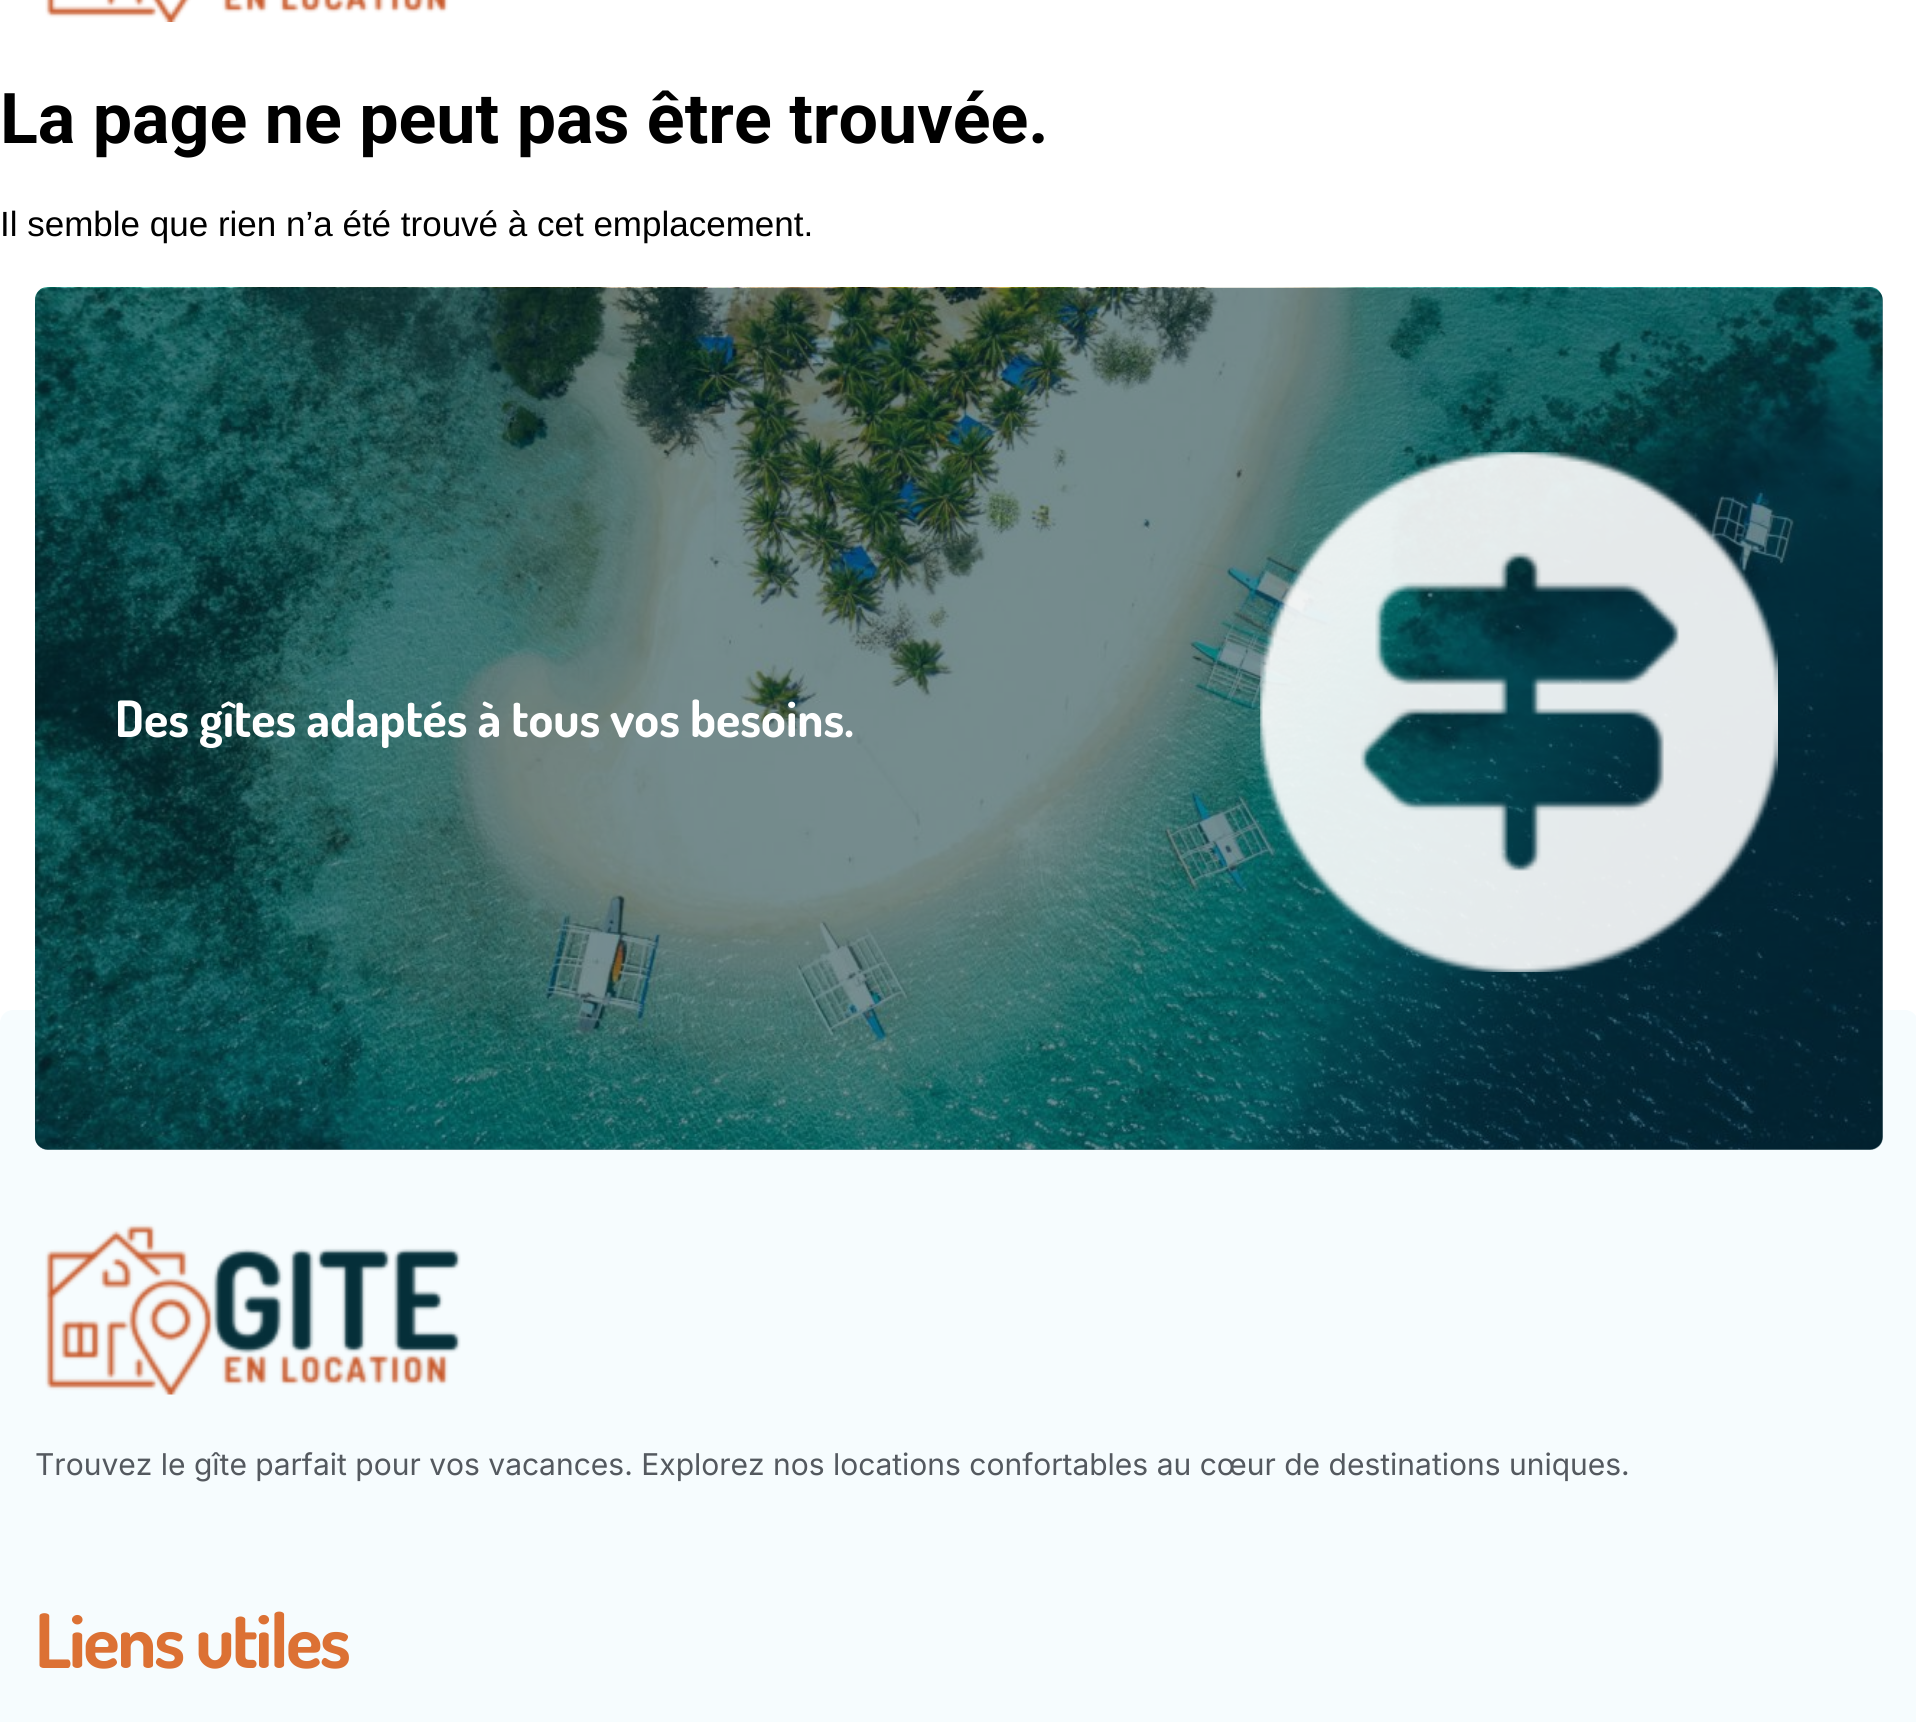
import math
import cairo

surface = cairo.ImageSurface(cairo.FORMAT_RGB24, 1916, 1722)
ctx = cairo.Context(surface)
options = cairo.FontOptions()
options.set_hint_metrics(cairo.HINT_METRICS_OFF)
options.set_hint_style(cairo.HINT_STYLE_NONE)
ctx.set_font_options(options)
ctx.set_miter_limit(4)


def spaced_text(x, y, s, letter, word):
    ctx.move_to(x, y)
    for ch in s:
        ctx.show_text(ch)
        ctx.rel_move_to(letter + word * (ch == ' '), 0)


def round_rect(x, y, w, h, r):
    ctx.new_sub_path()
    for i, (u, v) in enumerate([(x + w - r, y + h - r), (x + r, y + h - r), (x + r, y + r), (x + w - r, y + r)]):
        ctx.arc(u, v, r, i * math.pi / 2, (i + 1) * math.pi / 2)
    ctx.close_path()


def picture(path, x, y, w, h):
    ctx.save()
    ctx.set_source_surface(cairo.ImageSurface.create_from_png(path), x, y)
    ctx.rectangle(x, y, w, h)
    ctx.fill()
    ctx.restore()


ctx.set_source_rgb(1, 1, 1)
ctx.paint()
picture("img1.png", 45, 0, 403, 22)
ctx.select_font_face("Roboto", cairo.FONT_SLANT_NORMAL, cairo.FONT_WEIGHT_BOLD)
ctx.set_font_size(70)
ctx.set_source_rgb(0, 0, 0)
ctx.move_to(0, 143)
ctx.show_text("La page ne peut pas être trouvée.")
ctx.select_font_face("Liberation Sans")
ctx.set_font_size(35)
ctx.move_to(0, 236)
ctx.show_text("Il semble que rien n’a été trouvé à cet emplacement.")
ctx.set_source_rgb(0.961, 0.988, 0.996)
round_rect(0, 1010, 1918, 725, 13)
ctx.fill()
picture("img2.png", 35, 287, 1848, 863)
ctx.set_source_rgba(0.02, 0.184, 0.224, 0.5)
round_rect(35, 288, 1848, 862, 13)
ctx.fill()
ctx.select_font_face("Dosis", cairo.FONT_SLANT_NORMAL, cairo.FONT_WEIGHT_BOLD)
ctx.set_font_size(50)
ctx.set_source_rgb(1, 1, 1)
ctx.move_to(115, 737)
ctx.show_text("Des gîtes adaptés à tous vos besoins.")
picture("img3.png", 1260, 452, 518, 520)
picture("img4.png", 45, 1224, 416, 171)
ctx.select_font_face("Inter")
ctx.set_font_size(30)
ctx.set_source_rgb(0.329, 0.349, 0.373)
ctx.move_to(35, 1475)
ctx.show_text("Trouvez le gîte parfait pour vos vacances. Explorez nos locations confortables au cœur de destinations uniques.")
ctx.select_font_face("Dosis", cairo.FONT_SLANT_NORMAL, cairo.FONT_WEIGHT_BOLD)
ctx.set_font_size(75)
ctx.set_source_rgb(0.863, 0.443, 0.204)
spaced_text(35, 1668, "Liens utiles", -2.5, 0)
surface.write_to_png("page.png")
